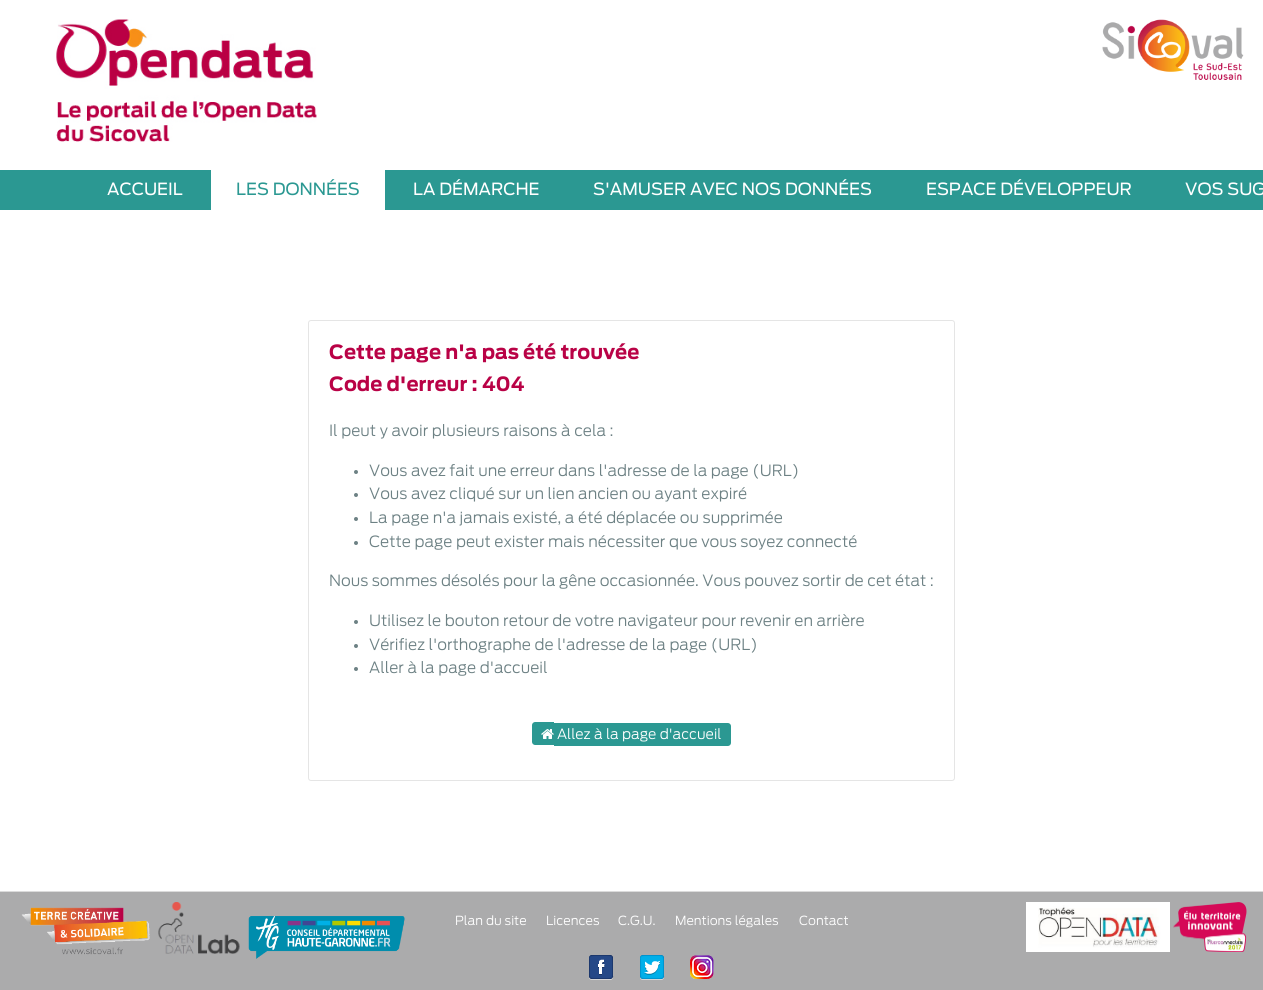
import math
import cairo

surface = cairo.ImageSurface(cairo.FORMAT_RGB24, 1263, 990)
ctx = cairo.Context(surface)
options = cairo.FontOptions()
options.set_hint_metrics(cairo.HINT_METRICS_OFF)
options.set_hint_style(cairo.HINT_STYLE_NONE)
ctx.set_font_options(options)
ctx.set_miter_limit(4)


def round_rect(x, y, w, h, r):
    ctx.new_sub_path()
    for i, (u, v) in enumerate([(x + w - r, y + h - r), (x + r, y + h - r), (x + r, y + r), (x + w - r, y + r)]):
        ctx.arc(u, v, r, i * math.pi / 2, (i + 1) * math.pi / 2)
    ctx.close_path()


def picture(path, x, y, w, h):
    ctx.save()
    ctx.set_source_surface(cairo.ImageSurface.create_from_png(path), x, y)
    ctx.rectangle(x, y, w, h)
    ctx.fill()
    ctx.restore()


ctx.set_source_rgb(1, 1, 1)
ctx.paint()
picture("img1.png", 56, 19, 261, 123)
picture("img2.png", 1102, 19, 142, 61)
ctx.set_source_rgb(0.169, 0.596, 0.573)
ctx.rectangle(0, 170, 1263, 40)
ctx.fill()
ctx.select_font_face("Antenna")
ctx.set_font_size(16.75)
ctx.set_source_rgb(1, 1, 1)
ctx.move_to(107, 195)
ctx.show_text("ACCUEIL")
ctx.rectangle(211, 170, 174, 40)
ctx.fill()
ctx.set_source_rgb(0.169, 0.596, 0.573)
ctx.move_to(236, 195)
ctx.show_text("LES DONNÉES")
ctx.set_source_rgb(1, 1, 1)
ctx.move_to(413, 195)
ctx.show_text("LA DÉMARCHE")
ctx.move_to(593, 195)
ctx.show_text("S'AMUSER AVEC NOS DONNÉES")
ctx.move_to(926, 195)
ctx.show_text("ESPACE DÉVELOPPEUR")
ctx.move_to(1185, 195)
ctx.show_text("VOS SUG")
round_rect(308.5, 320.5, 646, 460, 2.5)
ctx.set_source_rgb(0.898, 0.898, 0.898)
ctx.set_line_width(1)
ctx.stroke()
ctx.select_font_face("Antenna", cairo.FONT_SLANT_NORMAL, cairo.FONT_WEIGHT_BOLD)
ctx.set_font_size(19.6)
ctx.set_source_rgb(0.725, 0.008, 0.275)
ctx.move_to(329, 359)
ctx.show_text("Cette page n'a pas été trouvée")
ctx.move_to(329, 391)
ctx.show_text("Code d'erreur : 404")
ctx.select_font_face("Antenna Light")
ctx.set_font_size(15.4)
ctx.set_source_rgb(0.427, 0.506, 0.518)
ctx.move_to(329, 436)
ctx.show_text("Il peut y avoir plusieurs raisons à cela :")
ctx.new_path()
ctx.arc(356, 472, 2, 0, 2 * math.pi)
ctx.fill()
ctx.move_to(369, 476)
ctx.show_text("Vous avez fait une erreur dans l'adresse de la page (URL)")
ctx.new_path()
ctx.arc(356, 495, 2, 0, 2 * math.pi)
ctx.fill()
ctx.move_to(369, 499)
ctx.show_text("Vous avez cliqué sur un lien ancien ou ayant expiré")
ctx.new_path()
ctx.arc(356, 519, 2, 0, 2 * math.pi)
ctx.fill()
ctx.move_to(369, 523)
ctx.show_text("La page n'a jamais existé, a été déplacée ou supprimée")
ctx.new_path()
ctx.arc(356, 543, 2, 0, 2 * math.pi)
ctx.fill()
ctx.move_to(369, 547)
ctx.show_text("Cette page peut exister mais nécessiter que vous soyez connecté")
ctx.move_to(329, 586)
ctx.show_text("Nous sommes désolés pour la gêne occasionnée. Vous pouvez sortir de cet état :")
ctx.new_path()
ctx.arc(356, 622, 2, 0, 2 * math.pi)
ctx.fill()
ctx.move_to(369, 626)
ctx.show_text("Utilisez le bouton retour de votre navigateur pour revenir en arrière")
ctx.new_path()
ctx.arc(356, 646, 2, 0, 2 * math.pi)
ctx.fill()
ctx.move_to(369, 650)
ctx.show_text("Vérifiez l'orthographe de l'adresse de la page (URL)")
ctx.new_path()
ctx.arc(356, 669, 2, 0, 2 * math.pi)
ctx.fill()
ctx.move_to(369, 673)
ctx.show_text("Aller à la page d'accueil")
ctx.set_source_rgb(0.169, 0.596, 0.573)
ctx.new_path()
ctx.move_to(535, 722)
ctx.line_to(554, 722)
ctx.line_to(554, 745)
ctx.line_to(535, 745)
ctx.curve_to(533.5, 745, 532, 743.5, 532, 742)
ctx.line_to(532, 725)
ctx.curve_to(532, 723.5, 533.5, 722, 535, 722)
ctx.close_path()
ctx.fill()
ctx.new_path()
ctx.move_to(554, 723)
ctx.line_to(728, 723)
ctx.curve_to(729.5, 723, 731, 724.5, 731, 726)
ctx.line_to(731, 743)
ctx.curve_to(731, 744.5, 729.5, 746, 728, 746)
ctx.line_to(554, 746)
ctx.close_path()
ctx.fill()
picture("img3.png", 541, 729, 13, 10)
ctx.set_font_size(14)
ctx.set_source_rgb(1, 1, 1)
ctx.move_to(557, 739)
ctx.show_text("Allez à la page d'accueil")
ctx.set_source_rgb(0.671, 0.671, 0.675)
ctx.rectangle(0, 892, 1263, 98)
ctx.fill()
ctx.set_source_rgb(0.859, 0.859, 0.859)
ctx.rectangle(0, 891, 1263, 1)
ctx.fill()
picture("img4.png", 21, 907, 129, 48)
picture("img5.png", 158, 902, 82, 52)
picture("img6.png", 248, 916, 157, 43)
ctx.set_font_size(12.5)
ctx.set_source_rgb(1, 1, 1)
ctx.move_to(455, 925)
ctx.show_text("Plan du site")
ctx.move_to(546, 925)
ctx.show_text("Licences")
ctx.move_to(618, 925)
ctx.show_text("C.G.U.")
ctx.move_to(675, 925)
ctx.show_text("Mentions légales")
ctx.move_to(799, 925)
ctx.show_text("Contact")
picture("img7.png", 589, 955, 25, 25)
picture("img8.png", 640, 955, 25, 25)
picture("img9.png", 690, 955, 24, 24)
picture("img10.png", 1026, 902, 144, 50)
picture("img11.png", 1173, 902, 74, 50)
surface.write_to_png("page.png")
